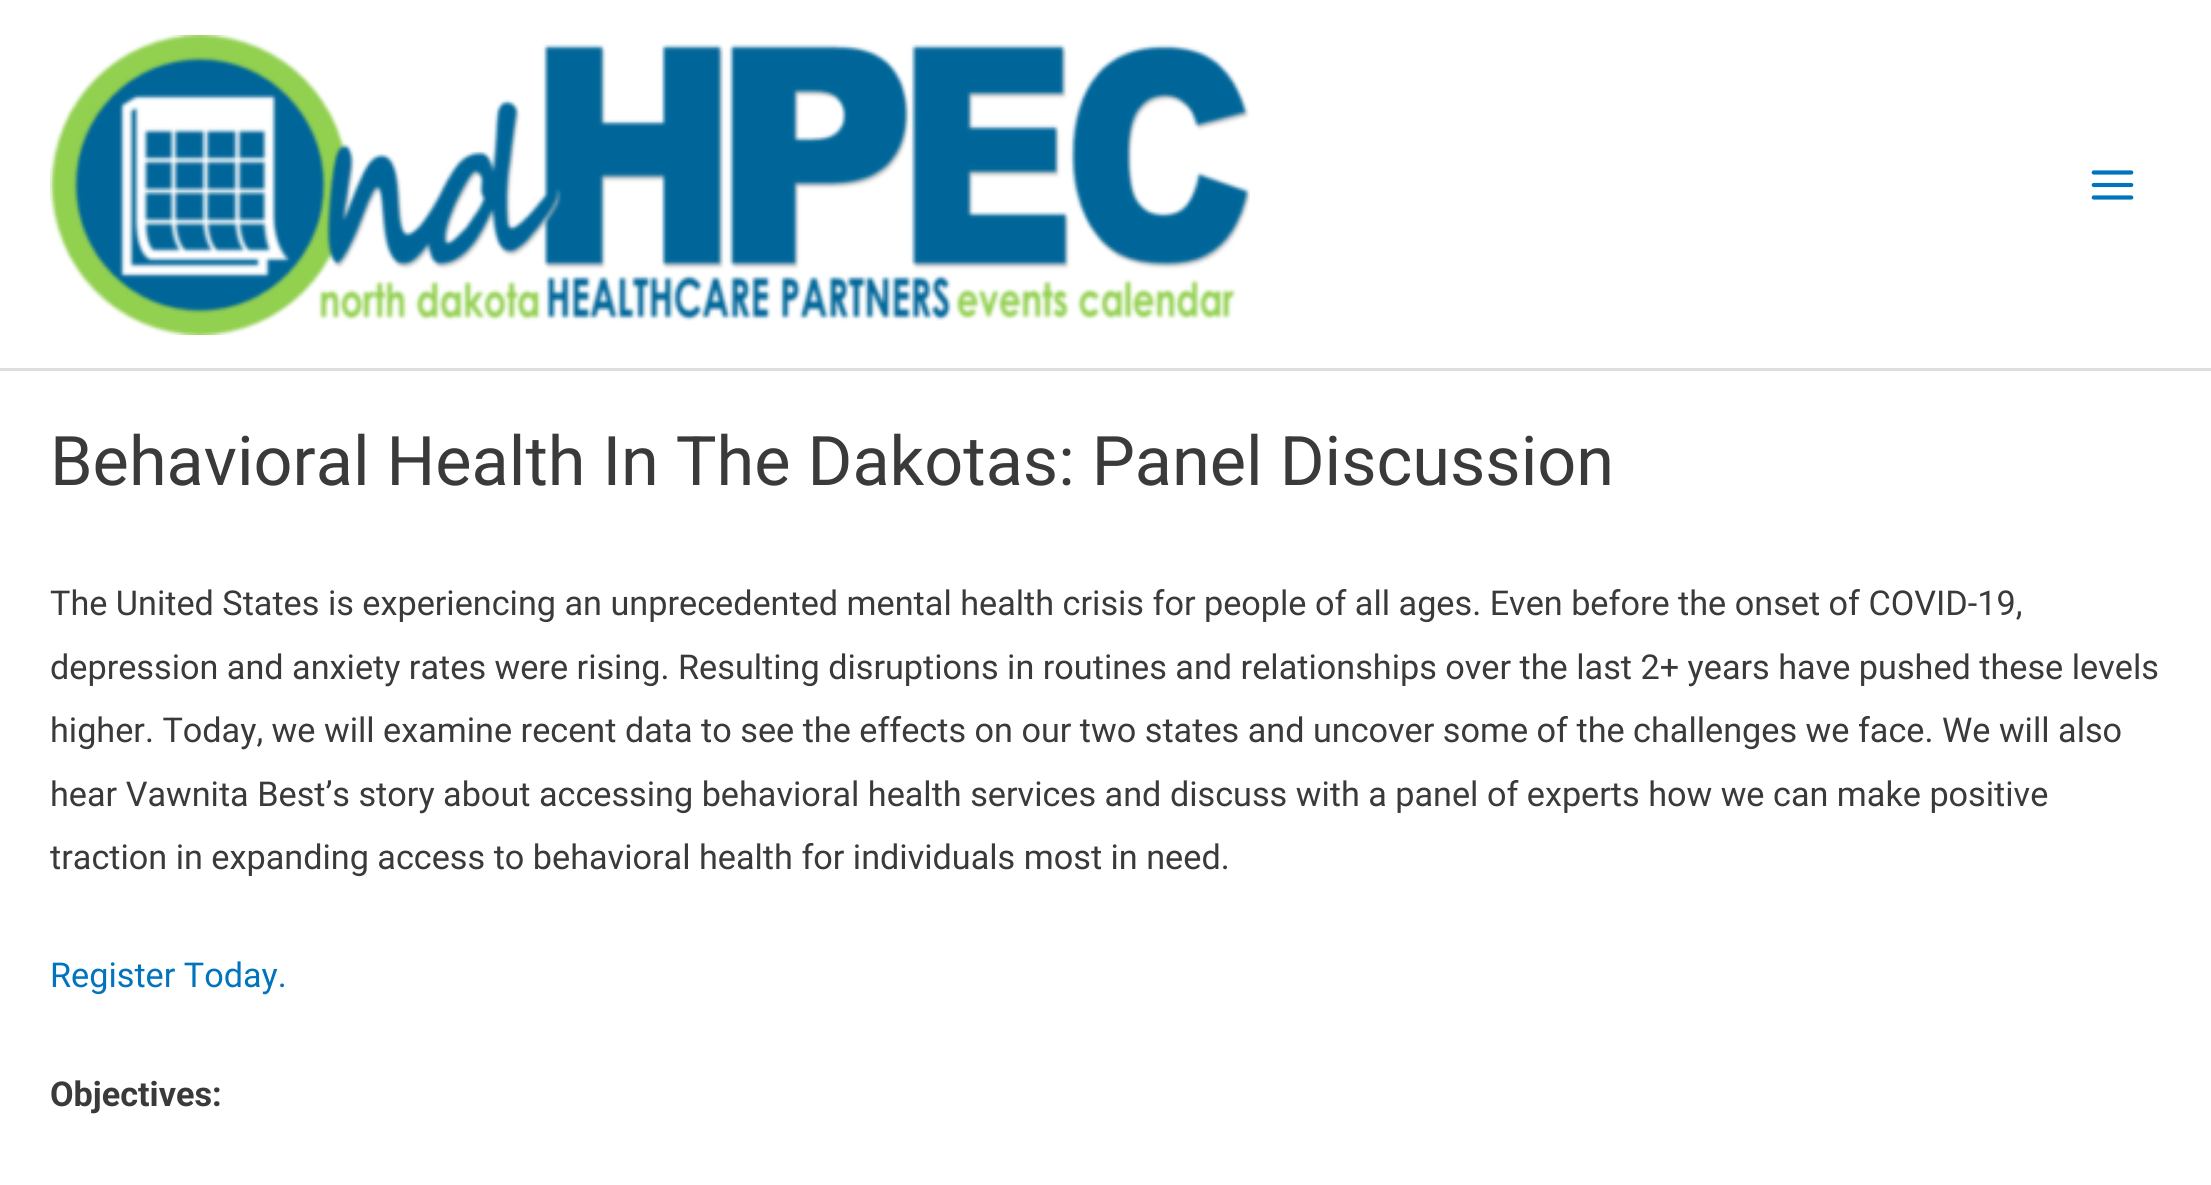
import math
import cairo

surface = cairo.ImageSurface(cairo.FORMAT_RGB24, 2211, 1185)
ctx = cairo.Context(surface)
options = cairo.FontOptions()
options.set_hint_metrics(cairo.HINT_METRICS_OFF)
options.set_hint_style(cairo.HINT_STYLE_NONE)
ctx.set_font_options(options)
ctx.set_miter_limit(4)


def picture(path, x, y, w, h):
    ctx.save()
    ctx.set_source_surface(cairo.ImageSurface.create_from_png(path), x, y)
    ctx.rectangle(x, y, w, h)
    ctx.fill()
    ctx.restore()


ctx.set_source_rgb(1, 1, 1)
ctx.paint()
ctx.set_source_rgb(0.867, 0.867, 0.867)
ctx.rectangle(0, 368, 2211, 3)
ctx.fill()
picture("img1.png", 50, 35, 1200, 300)
picture("img2.png", 2091, 170, 43, 30)
ctx.select_font_face("Roboto")
ctx.set_font_size(68.4)
ctx.set_source_rgb(0.227, 0.227, 0.227)
ctx.move_to(50, 485)
ctx.show_text("Behavioral Health In The Dakotas: Panel Discussion")
ctx.set_font_size(34.2)
ctx.move_to(50, 615)
ctx.show_text("The United States is experiencing an unprecedented mental health crisis for people of all ages. Even before the onset of COVID-19,")
ctx.move_to(50, 679)
ctx.show_text("depression and anxiety rates were rising. Resulting disruptions in routines and relationships over the last 2+ years have pushed these levels")
ctx.move_to(50, 742)
ctx.show_text("higher. Today, we will examine recent data to see the effects on our two states and uncover some of the challenges we face. We will also")
ctx.move_to(50, 806)
ctx.show_text("hear Vawnita Best’s story about accessing behavioral health services and discuss with a panel of experts how we can make positive")
ctx.move_to(50, 869)
ctx.show_text("traction in expanding access to behavioral health for individuals most in need.")
ctx.set_source_rgb(0.008, 0.455, 0.745)
ctx.move_to(50, 987)
ctx.show_text("Register Today.")
ctx.select_font_face("Roboto", cairo.FONT_SLANT_NORMAL, cairo.FONT_WEIGHT_BOLD)
ctx.set_source_rgb(0.227, 0.227, 0.227)
ctx.move_to(50, 1106)
ctx.show_text("Objectives:")
surface.write_to_png("page.png")
